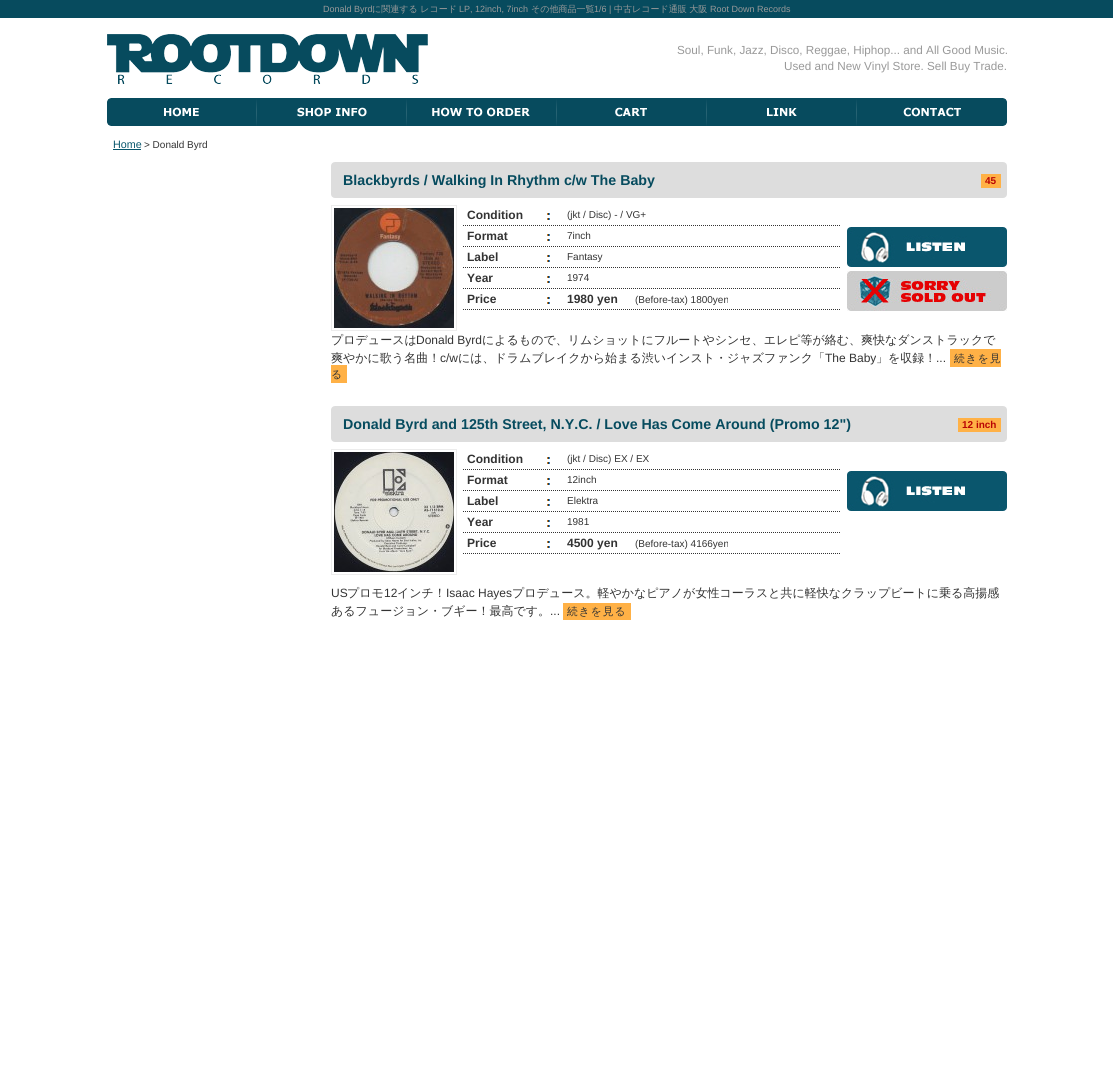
import math
import cairo

surface = cairo.ImageSurface(cairo.FORMAT_RGB24, 1113, 1078)
ctx = cairo.Context(surface)
options = cairo.FontOptions()
options.set_hint_metrics(cairo.HINT_METRICS_OFF)
options.set_hint_style(cairo.HINT_STYLE_NONE)
ctx.set_font_options(options)
ctx.set_miter_limit(4)


def spaced_text(x, y, s, letter, word):
    ctx.move_to(x, y)
    for ch in s:
        ctx.show_text(ch)
        ctx.rel_move_to(letter + word * (ch == ' '), 0)


def picture(path, x, y, w, h):
    ctx.save()
    ctx.set_source_surface(cairo.ImageSurface.create_from_png(path), x, y)
    ctx.rectangle(x, y, w, h)
    ctx.fill()
    ctx.restore()


ctx.set_source_rgb(1, 1, 1)
ctx.paint()
ctx.set_source_rgb(0.031, 0.294, 0.369)
ctx.rectangle(0, 0, 1113, 18)
ctx.fill()
ctx.select_font_face("Liberation Sans")
ctx.set_font_size(9)
ctx.set_source_rgb(0.6, 0.6, 0.6)
ctx.move_to(323, 12)
ctx.show_text("Donald Byrd")
ctx.select_font_face("WenQuanYi Zen Hei Medium")
ctx.move_to(372, 12)
ctx.show_text("に関連する レコード")
ctx.select_font_face("Liberation Sans")
ctx.move_to(459, 12)
ctx.show_text("LP, 12inch, 7inch")
ctx.select_font_face("WenQuanYi Zen Hei Medium")
ctx.move_to(531, 12)
ctx.show_text("その他商品一覧")
ctx.select_font_face("Liberation Sans")
ctx.move_to(594, 12)
ctx.show_text("1/6 |")
ctx.select_font_face("WenQuanYi Zen Hei Medium")
ctx.move_to(614, 12)
ctx.show_text("中古レコード通販 大阪")
ctx.select_font_face("Liberation Sans")
ctx.move_to(710, 12)
ctx.show_text("Root Down Records")
picture("img1.png", 107, 34, 321, 50)
ctx.set_font_size(11.7)
ctx.move_to(677, 54)
ctx.show_text("Soul, Funk, Jazz, Disco, Reggae, Hiphop... and All Good Music.")
ctx.move_to(784, 70)
ctx.show_text("Used and New Vinyl Store. Sell Buy Trade.")
picture("img2.png", 107, 98, 150, 28)
picture("img3.png", 257, 98, 150, 28)
picture("img4.png", 407, 98, 150, 28)
picture("img5.png", 557, 98, 150, 28)
picture("img6.png", 707, 98, 150, 28)
picture("img7.png", 857, 98, 150, 28)
ctx.set_font_size(10.75)
ctx.set_source_rgb(0.035, 0.337, 0.424)
ctx.move_to(113, 148)
ctx.show_text("Home")
ctx.rectangle(113, 149, 28, 1)
ctx.fill()
ctx.set_font_size(10)
ctx.set_source_rgb(0.2, 0.2, 0.2)
ctx.move_to(144, 148)
ctx.show_text("> Donald Byrd")
picture("img8.png", 331, 162, 676, 36)
ctx.select_font_face("Liberation Sans", cairo.FONT_SLANT_NORMAL, cairo.FONT_WEIGHT_BOLD)
ctx.set_font_size(14.25)
ctx.set_source_rgb(0.027, 0.294, 0.369)
ctx.move_to(343, 185)
ctx.show_text("Blackbyrds / Walking In Rhythm c/w The Baby")
ctx.set_source_rgb(1, 0.694, 0.275)
ctx.rectangle(981, 174, 20, 14)
ctx.fill()
ctx.set_font_size(10)
ctx.set_source_rgb(0.725, 0.016, 0.016)
ctx.move_to(985, 184)
ctx.show_text("45")
ctx.rectangle(331.5, 205.5, 125, 125)
ctx.set_source_rgb(0.925, 0.925, 0.925)
ctx.set_line_width(1)
ctx.stroke()
picture("img9.png", 334, 208, 120, 120)
picture("img10.png", 547, 213, 3, 7)
ctx.set_font_size(12)
ctx.set_source_rgb(0.2, 0.2, 0.2)
ctx.move_to(467, 219)
ctx.show_text("Condition")
ctx.new_path()
ctx.move_to(463, 225.5)
ctx.line_to(841, 225.5)
ctx.set_dash([1, 1])
ctx.stroke()
ctx.select_font_face("Liberation Sans")
ctx.set_font_size(10)
ctx.move_to(567, 218)
ctx.show_text("(jkt / Disc) - / VG+")
picture("img10.png", 547, 234, 3, 7)
ctx.select_font_face("Liberation Sans", cairo.FONT_SLANT_NORMAL, cairo.FONT_WEIGHT_BOLD)
ctx.set_font_size(12)
ctx.move_to(467, 240)
ctx.show_text("Format")
ctx.new_path()
ctx.move_to(463, 246.5)
ctx.line_to(841, 246.5)
ctx.stroke()
ctx.select_font_face("Liberation Sans")
ctx.set_font_size(10)
ctx.move_to(567, 239)
ctx.show_text("7inch")
picture("img10.png", 547, 255, 3, 7)
ctx.select_font_face("Liberation Sans", cairo.FONT_SLANT_NORMAL, cairo.FONT_WEIGHT_BOLD)
ctx.set_font_size(12)
ctx.move_to(467, 261)
ctx.show_text("Label")
ctx.new_path()
ctx.move_to(463, 267.5)
ctx.line_to(841, 267.5)
ctx.stroke()
ctx.select_font_face("Liberation Sans")
ctx.set_font_size(10)
ctx.move_to(567, 260)
ctx.show_text("Fantasy")
picture("img10.png", 547, 276, 3, 7)
ctx.select_font_face("Liberation Sans", cairo.FONT_SLANT_NORMAL, cairo.FONT_WEIGHT_BOLD)
ctx.set_font_size(12)
ctx.move_to(467, 282)
ctx.show_text("Year")
ctx.new_path()
ctx.move_to(463, 288.5)
ctx.line_to(841, 288.5)
ctx.stroke()
ctx.select_font_face("Liberation Sans")
ctx.set_font_size(10)
ctx.move_to(567, 281)
ctx.show_text("1974")
picture("img10.png", 547, 297, 3, 7)
ctx.select_font_face("Liberation Sans", cairo.FONT_SLANT_NORMAL, cairo.FONT_WEIGHT_BOLD)
ctx.set_font_size(12)
ctx.move_to(467, 303)
ctx.show_text("Price")
ctx.new_path()
ctx.move_to(463, 309.5)
ctx.line_to(841, 309.5)
ctx.stroke()
ctx.move_to(567, 303)
ctx.show_text("1980 yen")
ctx.select_font_face("Liberation Sans")
ctx.set_font_size(10)
ctx.move_to(635, 303)
ctx.show_text("(Before-tax) 1800yen")
picture("img11.png", 847, 227, 160, 40)
picture("img12.png", 847, 271, 160, 40)
ctx.select_font_face("WenQuanYi Zen Hei Medium")
ctx.set_font_size(12)
ctx.move_to(331, 344)
ctx.show_text("プロデュースは")
ctx.select_font_face("Liberation Sans")
ctx.move_to(416, 344)
ctx.show_text("Donald Byrd")
ctx.select_font_face("WenQuanYi Zen Hei Medium")
ctx.move_to(482, 344)
ctx.show_text("によるもので、リムショットにフルートやシンセ、エレピ等が絡む、爽快なダンストラックで")
ctx.move_to(331, 362)
ctx.show_text("爽やかに歌う名曲！")
ctx.select_font_face("Liberation Sans")
ctx.move_to(440, 362)
ctx.show_text("c/w")
ctx.select_font_face("WenQuanYi Zen Hei Medium")
ctx.move_to(458, 362)
ctx.show_text("には、ドラムブレイクから始まる渋いインスト・ジャズファンク「")
ctx.select_font_face("Liberation Sans")
ctx.move_to(825, 362)
ctx.show_text("The Baby")
ctx.select_font_face("WenQuanYi Zen Hei Medium")
ctx.move_to(876, 362)
ctx.show_text("」を収録！")
ctx.select_font_face("Liberation Sans")
ctx.move_to(936, 362)
ctx.show_text("...")
ctx.set_source_rgb(1, 0.694, 0.275)
ctx.rectangle(950, 349, 51, 18)
ctx.fill()
ctx.select_font_face("WenQuanYi Zen Hei Medium")
ctx.set_font_size(10.75)
ctx.set_source_rgb(0.2, 0.2, 0.2)
spaced_text(954, 362, "続きを見", 1, 0)
ctx.set_source_rgb(1, 0.694, 0.275)
ctx.rectangle(331, 365, 16, 18)
ctx.fill()
ctx.set_source_rgb(0.2, 0.2, 0.2)
spaced_text(331, 378, "る", 1, 0)
picture("img8.png", 331, 406, 676, 36)
ctx.select_font_face("Liberation Sans", cairo.FONT_SLANT_NORMAL, cairo.FONT_WEIGHT_BOLD)
ctx.set_font_size(14.25)
ctx.set_source_rgb(0.027, 0.294, 0.369)
ctx.move_to(343, 429)
ctx.show_text("Donald Byrd and 125th Street, N.Y.C. / Love Has Come Around (Promo 12\")")
ctx.set_source_rgb(1, 0.694, 0.275)
ctx.rectangle(958, 418, 43, 14)
ctx.fill()
ctx.set_font_size(10)
ctx.set_source_rgb(0.725, 0.016, 0.016)
ctx.move_to(962, 428)
ctx.show_text("12 inch")
ctx.rectangle(331.5, 449.5, 125, 125)
ctx.set_source_rgb(0.925, 0.925, 0.925)
ctx.set_dash([])
ctx.stroke()
picture("img13.png", 334, 452, 120, 120)
picture("img10.png", 547, 457, 3, 7)
ctx.set_font_size(12)
ctx.set_source_rgb(0.2, 0.2, 0.2)
ctx.move_to(467, 463)
ctx.show_text("Condition")
ctx.new_path()
ctx.move_to(463, 469.5)
ctx.line_to(841, 469.5)
ctx.set_dash([1, 1])
ctx.stroke()
ctx.select_font_face("Liberation Sans")
ctx.set_font_size(10)
ctx.move_to(567, 462)
ctx.show_text("(jkt / Disc) EX / EX")
picture("img10.png", 547, 478, 3, 7)
ctx.select_font_face("Liberation Sans", cairo.FONT_SLANT_NORMAL, cairo.FONT_WEIGHT_BOLD)
ctx.set_font_size(12)
ctx.move_to(467, 484)
ctx.show_text("Format")
ctx.new_path()
ctx.move_to(463, 490.5)
ctx.line_to(841, 490.5)
ctx.stroke()
ctx.select_font_face("Liberation Sans")
ctx.set_font_size(10)
ctx.move_to(567, 483)
ctx.show_text("12inch")
picture("img10.png", 547, 499, 3, 7)
ctx.select_font_face("Liberation Sans", cairo.FONT_SLANT_NORMAL, cairo.FONT_WEIGHT_BOLD)
ctx.set_font_size(12)
ctx.move_to(467, 505)
ctx.show_text("Label")
ctx.new_path()
ctx.move_to(463, 511.5)
ctx.line_to(841, 511.5)
ctx.stroke()
ctx.select_font_face("Liberation Sans")
ctx.set_font_size(10)
ctx.move_to(567, 504)
ctx.show_text("Elektra")
picture("img10.png", 547, 520, 3, 7)
ctx.select_font_face("Liberation Sans", cairo.FONT_SLANT_NORMAL, cairo.FONT_WEIGHT_BOLD)
ctx.set_font_size(12)
ctx.move_to(467, 526)
ctx.show_text("Year")
ctx.new_path()
ctx.move_to(463, 532.5)
ctx.line_to(841, 532.5)
ctx.stroke()
ctx.select_font_face("Liberation Sans")
ctx.set_font_size(10)
ctx.move_to(567, 525)
ctx.show_text("1981")
picture("img10.png", 547, 541, 3, 7)
ctx.select_font_face("Liberation Sans", cairo.FONT_SLANT_NORMAL, cairo.FONT_WEIGHT_BOLD)
ctx.set_font_size(12)
ctx.move_to(467, 547)
ctx.show_text("Price")
ctx.new_path()
ctx.move_to(463, 553.5)
ctx.line_to(841, 553.5)
ctx.stroke()
ctx.move_to(567, 547)
ctx.show_text("4500 yen")
ctx.select_font_face("Liberation Sans")
ctx.set_font_size(10)
ctx.move_to(635, 547)
ctx.show_text("(Before-tax) 4166yen")
picture("img11.png", 847, 471, 160, 40)
ctx.set_font_size(12)
ctx.move_to(331, 597)
ctx.show_text("US")
ctx.select_font_face("WenQuanYi Zen Hei Medium")
ctx.move_to(347, 597)
ctx.show_text("プロモ")
ctx.select_font_face("Liberation Sans")
ctx.move_to(384, 597)
ctx.show_text("12")
ctx.select_font_face("WenQuanYi Zen Hei Medium")
ctx.move_to(397, 597)
ctx.show_text("インチ！")
ctx.select_font_face("Liberation Sans")
ctx.move_to(446, 597)
ctx.show_text("Isaac Hayes")
ctx.select_font_face("WenQuanYi Zen Hei Medium")
ctx.move_to(512, 597)
ctx.show_text("プロデュース。軽やかなピアノが女性コーラスと共に軽快なクラップビートに乗る高揚感")
ctx.move_to(331, 615)
ctx.show_text("あるフュージョン・ブギー！最高です。")
ctx.select_font_face("Liberation Sans")
ctx.move_to(550, 615)
ctx.show_text("...")
ctx.set_source_rgb(1, 0.694, 0.275)
ctx.rectangle(563, 603, 68, 17)
ctx.fill()
ctx.select_font_face("WenQuanYi Zen Hei Medium")
ctx.set_font_size(10.75)
ctx.set_source_rgb(0.2, 0.2, 0.2)
spaced_text(567, 615, "続きを見る", 1, 0)
surface.write_to_png("page.png")
